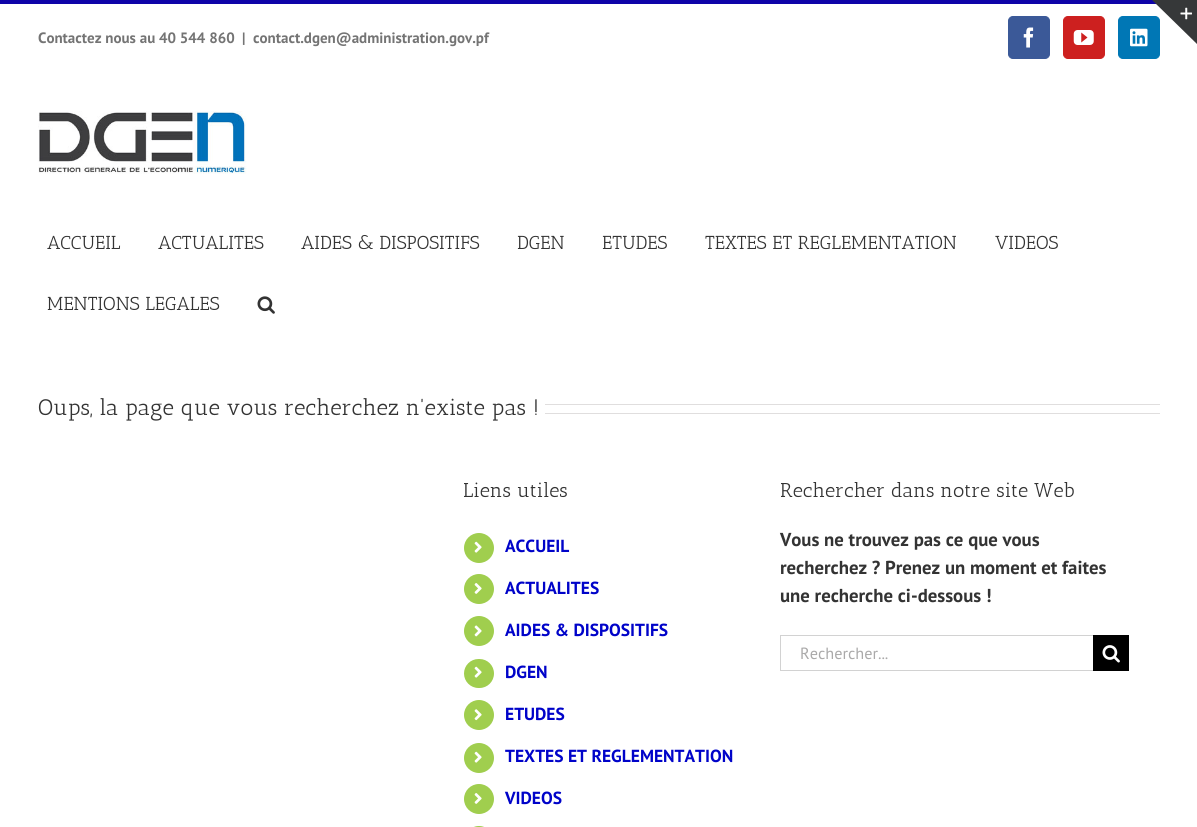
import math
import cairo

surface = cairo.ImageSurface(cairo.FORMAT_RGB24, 1197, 827)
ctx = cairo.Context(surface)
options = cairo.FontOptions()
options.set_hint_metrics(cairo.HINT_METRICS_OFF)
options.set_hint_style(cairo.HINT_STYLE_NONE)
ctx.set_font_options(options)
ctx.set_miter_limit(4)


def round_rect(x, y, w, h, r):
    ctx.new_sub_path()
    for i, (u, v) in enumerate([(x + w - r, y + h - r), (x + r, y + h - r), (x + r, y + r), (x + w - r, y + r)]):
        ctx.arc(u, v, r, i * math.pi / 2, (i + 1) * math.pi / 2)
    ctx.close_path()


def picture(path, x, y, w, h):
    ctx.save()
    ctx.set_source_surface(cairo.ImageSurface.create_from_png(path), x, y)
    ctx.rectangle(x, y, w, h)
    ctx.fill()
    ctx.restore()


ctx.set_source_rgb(1, 1, 1)
ctx.paint()
ctx.set_source_rgb(0.055, 0.012, 0.659)
ctx.rectangle(0, 0, 1157, 4)
ctx.fill()
ctx.set_source_rgb(0, 0.467, 0.71)
round_rect(1118.5, 16.5, 41, 42, 4.5)
ctx.fill_preserve()
ctx.set_line_width(1)
ctx.stroke()
ctx.set_source_rgb(0.212, 0.22, 0.224)
ctx.new_path()
ctx.move_to(1152, 0)
ctx.line_to(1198, 0)
ctx.line_to(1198, 45)
ctx.close_path()
ctx.fill()
picture("img1.png", 1180, 7, 12, 13)
ctx.select_font_face("PT Sans", cairo.FONT_SLANT_NORMAL, cairo.FONT_WEIGHT_BOLD)
ctx.set_font_size(15)
ctx.set_source_rgb(0.455, 0.455, 0.455)
ctx.move_to(38, 43)
ctx.show_text("Contactez nous au 40 544 860")
ctx.move_to(242, 43)
ctx.show_text("|")
ctx.move_to(253, 43)
ctx.show_text("contact.dgen@administration.gov.pf")
ctx.set_source_rgb(0.231, 0.349, 0.596)
round_rect(1008.5, 16.5, 41, 42, 4.5)
ctx.fill_preserve()
ctx.stroke()
picture("img2.png", 1023, 27, 11, 21)
ctx.set_source_rgb(0.804, 0.125, 0.122)
round_rect(1063.5, 16.5, 41, 42, 4.5)
ctx.fill_preserve()
ctx.stroke()
picture("img3.png", 1073, 30, 21, 15)
picture("img4.png", 1130, 28, 18, 19)
picture("img5.png", 38, 111, 209, 63)
ctx.select_font_face("Antic Slab")
ctx.set_font_size(18.75)
ctx.set_source_rgb(0.2, 0.2, 0.2)
ctx.move_to(47, 249)
ctx.show_text("ACCUEIL")
ctx.move_to(158, 249)
ctx.show_text("ACTUALITES")
ctx.move_to(301, 249)
ctx.show_text("AIDES & DISPOSITIFS")
ctx.move_to(517, 249)
ctx.show_text("DGEN")
ctx.move_to(602, 249)
ctx.show_text("ETUDES")
ctx.move_to(705, 249)
ctx.show_text("TEXTES ET REGLEMENTATION")
ctx.move_to(995, 249)
ctx.show_text("VIDEOS")
ctx.move_to(47, 310)
ctx.show_text("MENTIONS LEGALES")
picture("img6.png", 257, 296, 18, 18)
ctx.set_font_size(22.5)
ctx.move_to(38, 415)
ctx.show_text("Oups, la page que vous recherchez n'existe pas !")
ctx.set_source_rgb(0.878, 0.871, 0.871)
ctx.rectangle(545, 404, 615, 1)
ctx.fill()
ctx.rectangle(545, 413, 615, 1)
ctx.fill()
ctx.set_font_size(20)
ctx.set_source_rgb(0.2, 0.2, 0.2)
ctx.move_to(463, 497)
ctx.show_text("Liens utiles")
ctx.set_source_rgb(0.627, 0.808, 0.306)
ctx.new_path()
ctx.arc(479, 548, 15, 0, 2 * math.pi)
ctx.fill()
picture("img7.png", 474, 541, 8, 12)
ctx.select_font_face("PT Sans", cairo.FONT_SLANT_NORMAL, cairo.FONT_WEIGHT_BOLD)
ctx.set_font_size(17.5)
ctx.set_source_rgb(0, 0.012, 0.788)
ctx.move_to(505, 552)
ctx.show_text("ACCUEIL")
ctx.set_source_rgb(0.627, 0.808, 0.306)
ctx.new_path()
ctx.arc(479, 589, 15, 0, 2 * math.pi)
ctx.fill()
picture("img8.png", 474, 583, 8, 11)
ctx.set_source_rgb(0, 0.012, 0.788)
ctx.move_to(505, 594)
ctx.show_text("ACTUALITES")
ctx.set_source_rgb(0.627, 0.808, 0.306)
ctx.new_path()
ctx.arc(479, 631, 15, 0, 2 * math.pi)
ctx.fill()
picture("img9.png", 474, 625, 8, 12)
ctx.set_source_rgb(0, 0.012, 0.788)
ctx.move_to(505, 636)
ctx.show_text("AIDES & DISPOSITIFS")
ctx.set_source_rgb(0.627, 0.808, 0.306)
round_rect(464, 659, 30, 29, 14.5)
ctx.fill()
picture("img7.png", 474, 666, 8, 12)
ctx.set_source_rgb(0, 0.012, 0.788)
ctx.move_to(505, 678)
ctx.show_text("DGEN")
ctx.set_source_rgb(0.627, 0.808, 0.306)
ctx.new_path()
ctx.arc(479, 715, 15, 0, 2 * math.pi)
ctx.fill()
picture("img10.png", 474, 709, 8, 12)
ctx.set_source_rgb(0, 0.012, 0.788)
ctx.move_to(505, 720)
ctx.show_text("ETUDES")
ctx.set_source_rgb(0.627, 0.808, 0.306)
ctx.new_path()
ctx.arc(479, 758, 15, 0, 2 * math.pi)
ctx.fill()
picture("img7.png", 474, 751, 8, 12)
ctx.set_source_rgb(0, 0.012, 0.788)
ctx.move_to(505, 762)
ctx.show_text("TEXTES ET REGLEMENTATION")
ctx.set_source_rgb(0.627, 0.808, 0.306)
ctx.new_path()
ctx.arc(479, 799, 15, 0, 2 * math.pi)
ctx.fill()
picture("img8.png", 474, 793, 8, 11)
ctx.set_source_rgb(0, 0.012, 0.788)
ctx.move_to(505, 804)
ctx.show_text("VIDEOS")
ctx.set_source_rgb(0.627, 0.808, 0.306)
round_rect(464, 826, 30, 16, 15)
ctx.fill()
ctx.select_font_face("Antic Slab")
ctx.set_font_size(20)
ctx.set_source_rgb(0.2, 0.2, 0.2)
ctx.move_to(780, 497)
ctx.show_text("Rechercher dans notre site Web")
ctx.select_font_face("PT Sans", cairo.FONT_SLANT_NORMAL, cairo.FONT_WEIGHT_BOLD)
ctx.set_font_size(18.75)
ctx.move_to(780, 546)
ctx.show_text("Vous ne trouvez pas ce que vous")
ctx.move_to(780, 574)
ctx.show_text("recherchez ? Prenez un moment et faites")
ctx.move_to(780, 602)
ctx.show_text("une recherche ci-dessous !")
ctx.set_source_rgb(0.824, 0.824, 0.824)
ctx.rectangle(780, 635, 313, 1)
ctx.fill()
ctx.rectangle(780, 670, 313, 1)
ctx.fill()
ctx.rectangle(780, 635, 1, 36)
ctx.fill()
ctx.select_font_face("PT Sans")
ctx.set_font_size(16.25)
ctx.set_source_rgb(0.667, 0.663, 0.663)
ctx.move_to(800, 659)
ctx.show_text("Rechercher...")
ctx.set_source_rgb(0, 0, 0)
ctx.rectangle(1093, 635, 36, 36)
ctx.fill()
picture("img11.png", 1102, 645, 18, 18)
surface.write_to_png("page.png")
